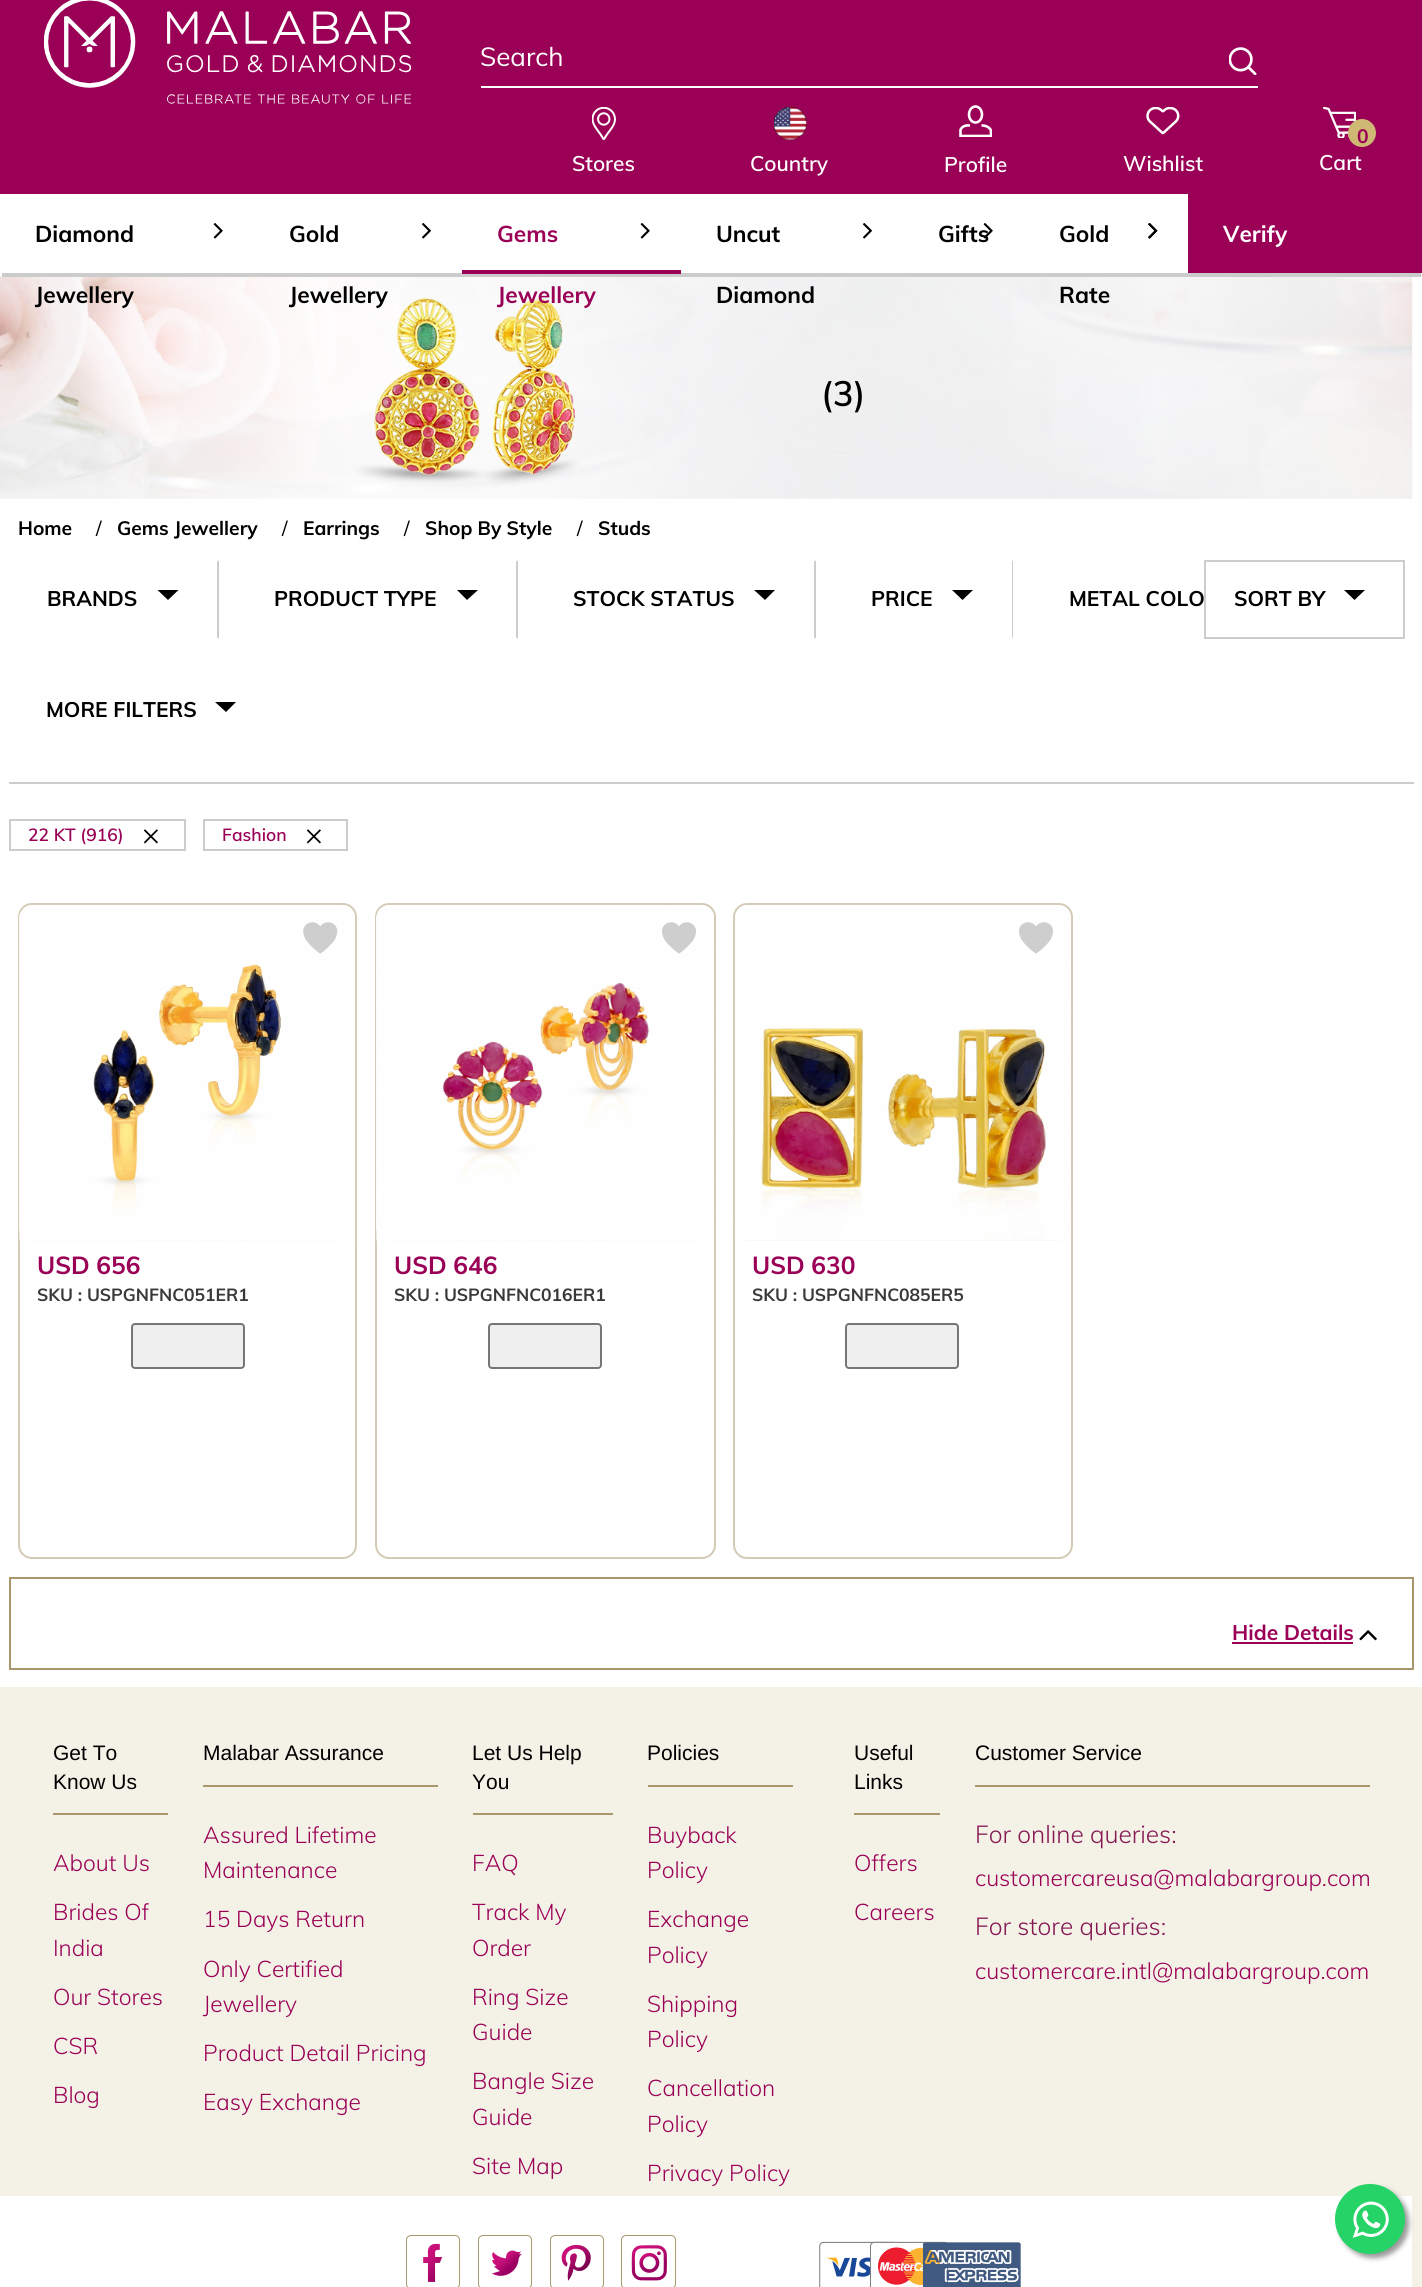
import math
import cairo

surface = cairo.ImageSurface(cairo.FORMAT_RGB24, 1422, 2287)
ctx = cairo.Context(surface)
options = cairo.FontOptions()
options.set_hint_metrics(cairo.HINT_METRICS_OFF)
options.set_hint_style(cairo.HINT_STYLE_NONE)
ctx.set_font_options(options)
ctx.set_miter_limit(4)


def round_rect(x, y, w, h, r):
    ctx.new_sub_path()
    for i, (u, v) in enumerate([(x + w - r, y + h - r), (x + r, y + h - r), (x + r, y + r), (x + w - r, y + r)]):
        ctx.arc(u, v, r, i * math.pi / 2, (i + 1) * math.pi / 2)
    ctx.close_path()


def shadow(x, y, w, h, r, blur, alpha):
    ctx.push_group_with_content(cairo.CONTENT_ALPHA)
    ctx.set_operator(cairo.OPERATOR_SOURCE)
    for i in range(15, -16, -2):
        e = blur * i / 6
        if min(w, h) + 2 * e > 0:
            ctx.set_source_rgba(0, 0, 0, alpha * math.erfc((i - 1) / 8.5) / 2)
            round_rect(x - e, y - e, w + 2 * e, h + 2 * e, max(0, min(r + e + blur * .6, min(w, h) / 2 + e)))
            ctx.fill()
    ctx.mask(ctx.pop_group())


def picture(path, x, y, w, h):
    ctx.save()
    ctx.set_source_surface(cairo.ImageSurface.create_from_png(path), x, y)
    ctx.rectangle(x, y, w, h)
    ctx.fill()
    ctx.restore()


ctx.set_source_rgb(1, 1, 1)
ctx.paint()
ctx.set_source_rgb(0.604, 0, 0.337)
ctx.rectangle(0, 0, 1422, 194)
ctx.fill()
picture("img1.png", 44, 0, 367, 104)
ctx.set_source_rgb(1, 1, 1)
ctx.rectangle(481, 86, 777, 2)
ctx.fill()
ctx.select_font_face("Muli")
ctx.set_font_size(26)
ctx.move_to(480, 66)
ctx.show_text("Search")
picture("img2.png", 1229, 47, 28, 28)
picture("img3.png", 592, 107, 24, 33)
ctx.select_font_face("Muli SemiBold")
ctx.set_font_size(21)
ctx.move_to(572, 171)
ctx.show_text("Stores")
picture("img4.png", 774, 107, 33, 33)
ctx.move_to(750, 171)
ctx.show_text("Country")
ctx.new_path()
ctx.move_to(975.5, 106.5)
ctx.curve_to(979, 106.5, 982, 110, 982, 114.5)
ctx.curve_to(982, 119, 979, 122.5, 975.5, 122.5)
ctx.curve_to(972, 122.5, 969, 119, 969, 114.5)
ctx.curve_to(969, 110, 972, 106.5, 975.5, 106.5)
ctx.close_path()
ctx.set_line_width(2.6)
ctx.stroke()
ctx.save()
ctx.rectangle(959, 105, 33, 32)
ctx.clip()
ctx.new_path()
ctx.move_to(981.5, 125.5)
ctx.curve_to(981.5, 125.5, 988.5, 125, 991, 130.5)
ctx.line_to(991, 136)
ctx.line_to(960.5, 136)
ctx.line_to(960.5, 130)
ctx.curve_to(960.5, 130, 962, 124.5, 970, 125.5)
ctx.stroke()
ctx.restore()
ctx.move_to(944, 172)
ctx.show_text("Profile")
picture("img5.png", 1146, 107, 34, 28)
ctx.move_to(1123, 171)
ctx.show_text("Wishlist")
picture("img6.png", 1323, 107, 33, 31)
ctx.set_source_rgb(0.812, 0.722, 0.451)
ctx.arc(1362, 133, 14, 0, 2 * math.pi)
ctx.fill()
ctx.select_font_face("Muli", cairo.FONT_SLANT_NORMAL, cairo.FONT_WEIGHT_BOLD)
ctx.set_font_size(19.25)
ctx.set_source_rgb(0.604, 0, 0.337)
ctx.move_to(1357, 143)
ctx.show_text("0")
ctx.select_font_face("Muli SemiBold")
ctx.set_font_size(21)
ctx.set_source_rgb(1, 1, 1)
ctx.move_to(1319, 170)
ctx.show_text("Cart")
picture("img12.png", 0, 276, 1413, 223)
round_rect(0, 194, 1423, 83, 4)
ctx.fill()
ctx.set_source_rgb(0.8, 0.8, 0.8)
ctx.rectangle(2, 273, 1419, 4)
ctx.fill()
ctx.select_font_face("Muli", cairo.FONT_SLANT_NORMAL, cairo.FONT_WEIGHT_BOLD)
ctx.set_font_size(22.75)
ctx.set_source_rgb(0, 0, 0)
ctx.move_to(35, 242)
ctx.show_text("Diamond")
ctx.move_to(35, 303)
ctx.show_text("Jewellery")
picture("img7.png", 213, 223, 10, 16)
ctx.move_to(289, 242)
ctx.show_text("Gold")
ctx.move_to(289, 303)
ctx.show_text("Jewellery")
picture("img8.png", 422, 223, 9, 16)
ctx.set_source_rgb(0.604, 0, 0.337)
ctx.rectangle(462, 270, 219, 4)
ctx.fill()
ctx.move_to(497, 242)
ctx.show_text("Gems")
ctx.move_to(497, 303)
ctx.show_text("Jewellery")
picture("img7.png", 640, 223, 10, 16)
ctx.set_source_rgb(0, 0, 0)
ctx.move_to(716, 242)
ctx.show_text("Uncut")
ctx.move_to(716, 303)
ctx.show_text("Diamond")
picture("img8.png", 863, 223, 9, 16)
ctx.move_to(938, 242)
ctx.show_text("Gifts")
picture("img9.png", 983, 223, 10, 16)
picture("img10.png", 1148, 223, 10, 16)
ctx.move_to(1059, 242)
ctx.show_text("Gold")
ctx.move_to(1059, 303)
ctx.show_text("Rate")
picture("img11.png", 1148, 223, 10, 16)
ctx.set_source_rgb(0.604, 0, 0.337)
ctx.rectangle(1188, 194, 234, 79)
ctx.fill()
ctx.set_source_rgb(1, 1, 1)
ctx.move_to(1223, 242)
ctx.show_text("Verify")
ctx.select_font_face("Muli SemiBold")
ctx.set_font_size(35)
ctx.set_source_rgb(0, 0, 0)
ctx.move_to(821, 406)
ctx.show_text("(3)")
ctx.select_font_face("Muli", cairo.FONT_SLANT_NORMAL, cairo.FONT_WEIGHT_BOLD)
ctx.set_font_size(19.25)
ctx.move_to(18, 535)
ctx.show_text("Home")
ctx.select_font_face("Muli")
ctx.move_to(96, 535)
ctx.show_text("/")
ctx.select_font_face("Muli", cairo.FONT_SLANT_NORMAL, cairo.FONT_WEIGHT_BOLD)
ctx.move_to(117, 535)
ctx.show_text("Gems Jewellery")
ctx.select_font_face("Muli")
ctx.move_to(282, 535)
ctx.show_text("/")
ctx.select_font_face("Muli", cairo.FONT_SLANT_NORMAL, cairo.FONT_WEIGHT_BOLD)
ctx.move_to(303, 535)
ctx.show_text("Earrings")
ctx.select_font_face("Muli")
ctx.move_to(404, 535)
ctx.show_text("/")
ctx.select_font_face("Muli", cairo.FONT_SLANT_NORMAL, cairo.FONT_WEIGHT_BOLD)
ctx.move_to(425, 535)
ctx.show_text("Shop By Style")
ctx.select_font_face("Muli")
ctx.move_to(577, 535)
ctx.show_text("/")
ctx.select_font_face("Muli", cairo.FONT_SLANT_NORMAL, cairo.FONT_WEIGHT_BOLD)
ctx.move_to(598, 535)
ctx.show_text("Studs")
ctx.set_source_rgb(0.8, 0.8, 0.8)
ctx.rectangle(9, 782, 1405, 2)
ctx.fill()
ctx.new_path()
ctx.move_to(219, 560)
ctx.line_to(219, 639)
ctx.line_to(217, 637)
ctx.line_to(217, 562)
ctx.close_path()
ctx.fill()
ctx.set_font_size(21)
ctx.set_source_rgb(0, 0, 0)
ctx.move_to(47, 606)
ctx.show_text("BRANDS")
ctx.new_path()
ctx.move_to(157.5, 590)
ctx.line_to(178.5, 590)
ctx.line_to(168, 600)
ctx.close_path()
ctx.fill()
ctx.set_source_rgb(0.8, 0.8, 0.8)
ctx.new_path()
ctx.move_to(518, 560)
ctx.line_to(518, 639)
ctx.line_to(516, 637)
ctx.line_to(516, 562)
ctx.close_path()
ctx.fill()
ctx.set_source_rgb(0, 0, 0)
ctx.move_to(274, 606)
ctx.show_text("PRODUCT TYPE")
ctx.new_path()
ctx.move_to(457, 590)
ctx.line_to(478, 590)
ctx.line_to(467, 600)
ctx.close_path()
ctx.fill()
ctx.set_source_rgb(0.8, 0.8, 0.8)
ctx.new_path()
ctx.move_to(816, 560)
ctx.line_to(816, 639)
ctx.line_to(814, 637)
ctx.line_to(814, 562)
ctx.close_path()
ctx.fill()
ctx.set_source_rgb(0, 0, 0)
ctx.move_to(573, 606)
ctx.show_text("STOCK STATUS")
ctx.new_path()
ctx.move_to(754, 590)
ctx.line_to(775, 590)
ctx.line_to(765, 600)
ctx.close_path()
ctx.fill()
ctx.set_source_rgb(0.8, 0.8, 0.8)
ctx.new_path()
ctx.move_to(1013, 560)
ctx.line_to(1013, 639)
ctx.line_to(1012, 637)
ctx.line_to(1012, 562)
ctx.close_path()
ctx.fill()
ctx.set_source_rgb(0, 0, 0)
ctx.move_to(871, 606)
ctx.show_text("PRICE")
ctx.new_path()
ctx.move_to(952, 590)
ctx.line_to(973, 590)
ctx.line_to(962.5, 600)
ctx.close_path()
ctx.fill()
ctx.move_to(1069, 606)
ctx.show_text("METAL COLO")
ctx.rectangle(1205, 561, 199, 77)
ctx.set_source_rgb(0.8, 0.8, 0.8)
ctx.set_line_width(2)
ctx.stroke()
ctx.set_source_rgb(0, 0, 0)
ctx.move_to(1234, 606)
ctx.show_text("SORT BY")
ctx.new_path()
ctx.move_to(1344, 590)
ctx.line_to(1365, 590)
ctx.line_to(1354.5, 600)
ctx.close_path()
ctx.fill()
ctx.move_to(46, 717)
ctx.show_text("MORE FILTERS")
ctx.new_path()
ctx.move_to(215, 702)
ctx.line_to(236, 702)
ctx.line_to(226, 712)
ctx.close_path()
ctx.fill()
ctx.rectangle(10, 820, 175, 30)
ctx.set_source_rgb(0.8, 0.8, 0.8)
ctx.stroke()
ctx.select_font_face("Muli SemiBold")
ctx.set_font_size(17.5)
ctx.set_source_rgb(0.604, 0, 0.337)
ctx.move_to(28, 841)
ctx.show_text("22 KT (916)")
ctx.select_font_face("Liberation Serif")
ctx.set_font_size(35)
ctx.set_source_rgb(0, 0, 0)
ctx.move_to(141, 848)
ctx.show_text("×")
ctx.rectangle(204, 820, 143, 30)
ctx.set_source_rgb(0.8, 0.8, 0.8)
ctx.stroke()
ctx.select_font_face("Muli SemiBold")
ctx.set_font_size(17.5)
ctx.set_source_rgb(0.604, 0, 0.337)
ctx.move_to(222, 841)
ctx.show_text("Fashion")
ctx.select_font_face("Liberation Serif")
ctx.set_font_size(35)
ctx.set_source_rgb(0, 0, 0)
ctx.move_to(304, 848)
ctx.show_text("×")
round_rect(19, 904, 337, 654, 13)
ctx.set_source_rgb(0.827, 0.796, 0.714)
ctx.stroke()
ctx.set_source_rgb(0.976, 0.976, 0.976)
round_rect(19, 905, 336, 336, 14)
ctx.fill()
picture("img13.png", 19, 904, 337, 337)
picture("img14.png", 303, 922, 35, 32)
ctx.select_font_face("Muli", cairo.FONT_SLANT_NORMAL, cairo.FONT_WEIGHT_BOLD)
ctx.set_font_size(24.5)
ctx.set_source_rgb(0.604, 0, 0.337)
ctx.move_to(37, 1274)
ctx.show_text("USD 656")
ctx.set_font_size(17.5)
ctx.set_source_rgb(0.224, 0.224, 0.224)
ctx.move_to(37, 1301)
ctx.show_text("SKU : USPGNFNC051ER1")
ctx.set_source_rgb(0.937, 0.937, 0.937)
round_rect(132, 1324, 112, 44, 3)
ctx.fill_preserve()
ctx.set_source_rgb(0.463, 0.463, 0.463)
ctx.stroke()
round_rect(376, 904, 339, 654, 13)
ctx.set_source_rgb(0.827, 0.796, 0.714)
ctx.stroke()
ctx.set_source_rgb(0.976, 0.976, 0.976)
round_rect(376, 905, 338, 336, 14)
ctx.fill()
picture("img15.png", 376, 904, 338, 337)
picture("img16.png", 662, 922, 34, 32)
ctx.set_font_size(24.5)
ctx.set_source_rgb(0.604, 0, 0.337)
ctx.move_to(394, 1274)
ctx.show_text("USD 646")
ctx.set_font_size(17.5)
ctx.set_source_rgb(0.224, 0.224, 0.224)
ctx.move_to(394, 1301)
ctx.show_text("SKU : USPGNFNC016ER1")
ctx.set_source_rgb(0.937, 0.937, 0.937)
round_rect(489, 1324, 112, 44, 3)
ctx.fill_preserve()
ctx.set_source_rgb(0.463, 0.463, 0.463)
ctx.stroke()
round_rect(734, 904, 338, 654, 13)
ctx.set_source_rgb(0.827, 0.796, 0.714)
ctx.stroke()
ctx.set_source_rgb(0.976, 0.976, 0.976)
round_rect(735, 905, 336, 336, 14)
ctx.fill()
picture("img17.png", 735, 904, 336, 336)
picture("img18.png", 1019, 922, 34, 32)
ctx.set_font_size(24.5)
ctx.set_source_rgb(0.604, 0, 0.337)
ctx.move_to(752, 1274)
ctx.show_text("USD 630")
ctx.set_font_size(17.5)
ctx.set_source_rgb(0.224, 0.224, 0.224)
ctx.move_to(752, 1301)
ctx.show_text("SKU : USPGNFNC085ER5")
ctx.set_source_rgb(0.937, 0.937, 0.937)
round_rect(846, 1324, 112, 44, 3)
ctx.fill_preserve()
ctx.set_source_rgb(0.463, 0.463, 0.463)
ctx.stroke()
ctx.rectangle(10, 1578, 1403, 91)
ctx.set_source_rgb(0.659, 0.592, 0.427)
ctx.stroke()
ctx.set_font_size(21)
ctx.set_source_rgb(0.604, 0, 0.337)
ctx.move_to(1232, 1640)
ctx.show_text("Hide Details")
ctx.rectangle(1232, 1642, 121, 2)
ctx.fill()
picture("img19.png", 1359, 1630, 18, 11)
ctx.set_source_rgb(0.957, 0.945, 0.902)
ctx.rectangle(0, 1687, 1422, 600)
ctx.fill()
ctx.set_source_rgb(0.659, 0.592, 0.427)
ctx.rectangle(53, 1813, 115, 2)
ctx.fill()
ctx.select_font_face("Liberation Sans")
ctx.set_source_rgb(0, 0, 0)
ctx.move_to(53, 1760)
ctx.show_text("Get To")
ctx.move_to(53, 1789)
ctx.show_text("Know Us")
ctx.select_font_face("Muli Light")
ctx.set_font_size(22.75)
ctx.set_source_rgb(0.604, 0, 0.337)
ctx.move_to(53, 1871)
ctx.show_text("About Us")
ctx.move_to(53, 1920)
ctx.show_text("Brides Of")
ctx.move_to(53, 1956)
ctx.show_text("India")
ctx.move_to(53, 2005)
ctx.show_text("Our Stores")
ctx.move_to(53, 2054)
ctx.show_text("CSR")
ctx.move_to(53, 2103)
ctx.show_text("Blog")
ctx.set_source_rgb(0.659, 0.592, 0.427)
ctx.rectangle(203, 1785, 235, 2)
ctx.fill()
ctx.select_font_face("Liberation Sans")
ctx.set_font_size(21)
ctx.set_source_rgb(0, 0, 0)
ctx.move_to(203, 1760)
ctx.show_text("Malabar Assurance")
ctx.select_font_face("Muli Light")
ctx.set_font_size(22.75)
ctx.set_source_rgb(0.604, 0, 0.337)
ctx.move_to(203, 1843)
ctx.show_text("Assured Lifetime")
ctx.move_to(203, 1878)
ctx.show_text("Maintenance")
ctx.move_to(203, 1927)
ctx.show_text("15 Days Return")
ctx.move_to(203, 1977)
ctx.show_text("Only Certified")
ctx.move_to(203, 2012)
ctx.show_text("Jewellery")
ctx.move_to(203, 2061)
ctx.show_text("Product Detail Pricing")
ctx.move_to(203, 2110)
ctx.show_text("Easy Exchange")
ctx.set_source_rgb(0.659, 0.592, 0.427)
ctx.rectangle(473, 1813, 140, 2)
ctx.fill()
ctx.select_font_face("Liberation Sans")
ctx.set_font_size(21)
ctx.set_source_rgb(0, 0, 0)
ctx.move_to(472, 1760)
ctx.show_text("Let Us Help")
ctx.move_to(472, 1789)
ctx.show_text("You")
ctx.select_font_face("Muli Light")
ctx.set_font_size(22.75)
ctx.set_source_rgb(0.604, 0, 0.337)
ctx.move_to(472, 1871)
ctx.show_text("FAQ")
ctx.move_to(472, 1920)
ctx.show_text("Track My")
ctx.move_to(472, 1956)
ctx.show_text("Order")
ctx.move_to(472, 2005)
ctx.show_text("Ring Size")
ctx.move_to(472, 2040)
ctx.show_text("Guide")
ctx.move_to(472, 2089)
ctx.show_text("Bangle Size")
ctx.move_to(472, 2125)
ctx.show_text("Guide")
ctx.move_to(472, 2174)
ctx.show_text("Site Map")
ctx.set_source_rgb(0.659, 0.592, 0.427)
ctx.rectangle(648, 1785, 145, 2)
ctx.fill()
ctx.select_font_face("Liberation Sans")
ctx.set_font_size(21)
ctx.set_source_rgb(0, 0, 0)
ctx.move_to(647, 1760)
ctx.show_text("Policies")
ctx.select_font_face("Muli Light")
ctx.set_font_size(22.75)
ctx.set_source_rgb(0.604, 0, 0.337)
ctx.move_to(647, 1843)
ctx.show_text("Buyback")
ctx.move_to(647, 1878)
ctx.show_text("Policy")
ctx.move_to(647, 1927)
ctx.show_text("Exchange")
ctx.move_to(647, 1963)
ctx.show_text("Policy")
ctx.move_to(647, 2012)
ctx.show_text("Shipping")
ctx.move_to(647, 2047)
ctx.show_text("Policy")
ctx.move_to(647, 2096)
ctx.show_text("Cancellation")
ctx.move_to(647, 2132)
ctx.show_text("Policy")
ctx.move_to(647, 2181)
ctx.show_text("Privacy Policy")
ctx.set_source_rgb(0.659, 0.592, 0.427)
ctx.rectangle(854, 1813, 86, 2)
ctx.fill()
ctx.select_font_face("Liberation Sans")
ctx.set_font_size(21)
ctx.set_source_rgb(0, 0, 0)
ctx.move_to(854, 1760)
ctx.show_text("Useful")
ctx.move_to(854, 1789)
ctx.show_text("Links")
ctx.select_font_face("Muli Light")
ctx.set_font_size(22.75)
ctx.set_source_rgb(0.604, 0, 0.337)
ctx.move_to(854, 1871)
ctx.show_text("Offers")
ctx.move_to(854, 1920)
ctx.show_text("Careers")
ctx.set_source_rgb(0.659, 0.592, 0.427)
ctx.rectangle(975, 1785, 395, 2)
ctx.fill()
ctx.select_font_face("Liberation Sans")
ctx.set_font_size(21)
ctx.set_source_rgb(0, 0, 0)
ctx.move_to(975, 1760)
ctx.show_text("Customer Service")
ctx.select_font_face("Muli Light")
ctx.set_font_size(24.5)
ctx.set_source_rgb(0.522, 0.09, 0.325)
ctx.move_to(975, 1843)
ctx.show_text("For online queries:")
ctx.set_font_size(22.75)
ctx.set_source_rgb(0.604, 0, 0.337)
ctx.move_to(975, 1886)
ctx.show_text("customercareusa@malabargroup.com")
ctx.set_font_size(24.5)
ctx.set_source_rgb(0.522, 0.09, 0.325)
ctx.move_to(975, 1935)
ctx.show_text("For store queries:")
ctx.set_font_size(22.75)
ctx.set_source_rgb(0.604, 0, 0.337)
ctx.move_to(975, 1979)
ctx.show_text("customercare.intl@malabargroup.com")
ctx.set_source_rgb(1, 1, 1)
ctx.rectangle(0, 2196, 1412, 91)
ctx.fill()
picture("img20.png", 406, 2235, 54, 52)
picture("img21.png", 478, 2235, 54, 52)
picture("img22.png", 550, 2235, 54, 52)
picture("img23.png", 621, 2235, 55, 52)
picture("img24.png", 819, 2241, 75, 46)
picture("img26.png", 832, 2257, 18, 20)
picture("img25.png", 827, 2257, 12, 10)
ctx.set_source_rgb(0.098, 0.282, 0.596)
ctx.new_path()
ctx.move_to(857, 2258)
ctx.line_to(855, 2270)
ctx.curve_to(854, 2277.5, 855.5, 2276.5, 849, 2276.5)
ctx.line_to(852, 2258)
ctx.close_path()
ctx.fill()
picture("img27.png", 857, 2257, 13, 20)
ctx.set_source_rgb(1, 1, 1)
ctx.new_path()
ctx.move_to(948, 2287)
ctx.curve_to(948, 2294, 934, 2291, 932, 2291)
ctx.line_to(886, 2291)
ctx.curve_to(884, 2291, 870, 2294, 870, 2287)
ctx.line_to(870, 2253)
ctx.curve_to(870, 2240, 871, 2242, 886, 2242)
ctx.line_to(932, 2242)
ctx.curve_to(947, 2242, 948, 2240, 948, 2253)
ctx.close_path()
ctx.fill()
picture("img28.png", 870, 2241, 79, 46)
picture("img30.png", 908, 2247, 32, 38)
picture("img29.png", 878, 2247, 38, 38)
picture("img34.png", 895, 2263, 6, 8)
picture("img33.png", 888, 2263, 8, 8)
picture("img31.png", 879, 2262, 11, 9)
ctx.set_source_rgb(0.988, 0.702, 0.192)
ctx.new_path()
ctx.move_to(907, 2255)
ctx.line_to(917, 2255)
ctx.line_to(917, 2254)
ctx.line_to(908, 2254)
ctx.close_path()
ctx.move_to(905.5, 2257)
ctx.line_to(917, 2257)
ctx.line_to(917, 2256)
ctx.line_to(906, 2256)
ctx.close_path()
ctx.move_to(904.5, 2259)
ctx.line_to(917, 2259.5)
ctx.line_to(917, 2258.5)
ctx.line_to(905, 2258)
ctx.close_path()
ctx.move_to(903.5, 2261.5)
ctx.line_to(917, 2261.5)
ctx.line_to(917, 2260.5)
ctx.line_to(904, 2260.5)
ctx.close_path()
ctx.move_to(904, 2272.5)
ctx.line_to(916.5, 2272.5)
ctx.line_to(916.5, 2271.5)
ctx.line_to(903.5, 2271.5)
ctx.close_path()
ctx.move_to(905, 2274.5)
ctx.line_to(916.5, 2274.5)
ctx.line_to(916.5, 2273.5)
ctx.line_to(904.5, 2273.5)
ctx.close_path()
ctx.move_to(906, 2277)
ctx.line_to(916.5, 2277)
ctx.line_to(916.5, 2276)
ctx.line_to(905.5, 2276)
ctx.close_path()
ctx.move_to(908, 2279)
ctx.line_to(916.5, 2279)
ctx.line_to(916.5, 2278)
ctx.line_to(907, 2278)
ctx.close_path()
ctx.fill()
picture("img32.png", 879, 2262, 11, 9)
ctx.new_path()
ctx.move_to(903, 2263.5)
ctx.line_to(917, 2264)
ctx.line_to(917, 2263)
ctx.line_to(903.5, 2262.5)
ctx.close_path()
ctx.move_to(911.5, 2270)
ctx.line_to(916.5, 2270)
ctx.line_to(916.5, 2269)
ctx.line_to(911.5, 2269)
ctx.close_path()
ctx.fill()
ctx.new_path()
ctx.move_to(912, 2268)
ctx.line_to(916.5, 2268)
ctx.line_to(916.5, 2267)
ctx.line_to(912, 2267)
ctx.close_path()
ctx.move_to(903, 2267)
ctx.line_to(904, 2267)
ctx.line_to(904, 2268)
ctx.line_to(903, 2268)
ctx.close_path()
ctx.fill()
picture("img35.png", 900, 2262, 5, 9)
picture("img36.png", 914, 2262, 7, 9)
picture("img37.png", 935, 2263, 3, 1)
picture("img38.png", 903, 2264, 7, 7)
picture("img40.png", 909, 2264, 6, 7)
picture("img39.png", 903, 2264, 7, 7)
picture("img41.png", 890, 2267, 4, 3)
picture("img42.png", 909, 2264, 6, 7)
picture("img43.png", 920, 2264, 3, 8)
picture("img44.png", 922, 2268, 1, 2)
picture("img45.png", 922, 2242, 99, 45)
ctx.set_source_rgb(0.6, 0.6, 0.6)
shadow(1339, 2188, 70, 70, 35, 2.5, 1)
ctx.set_source_rgb(0.145, 0.827, 0.4)
ctx.arc(1370, 2219, 35, 0, 2 * math.pi)
ctx.fill()
picture("img46.png", 1352, 2201, 37, 37)
surface.write_to_png("page.png")
